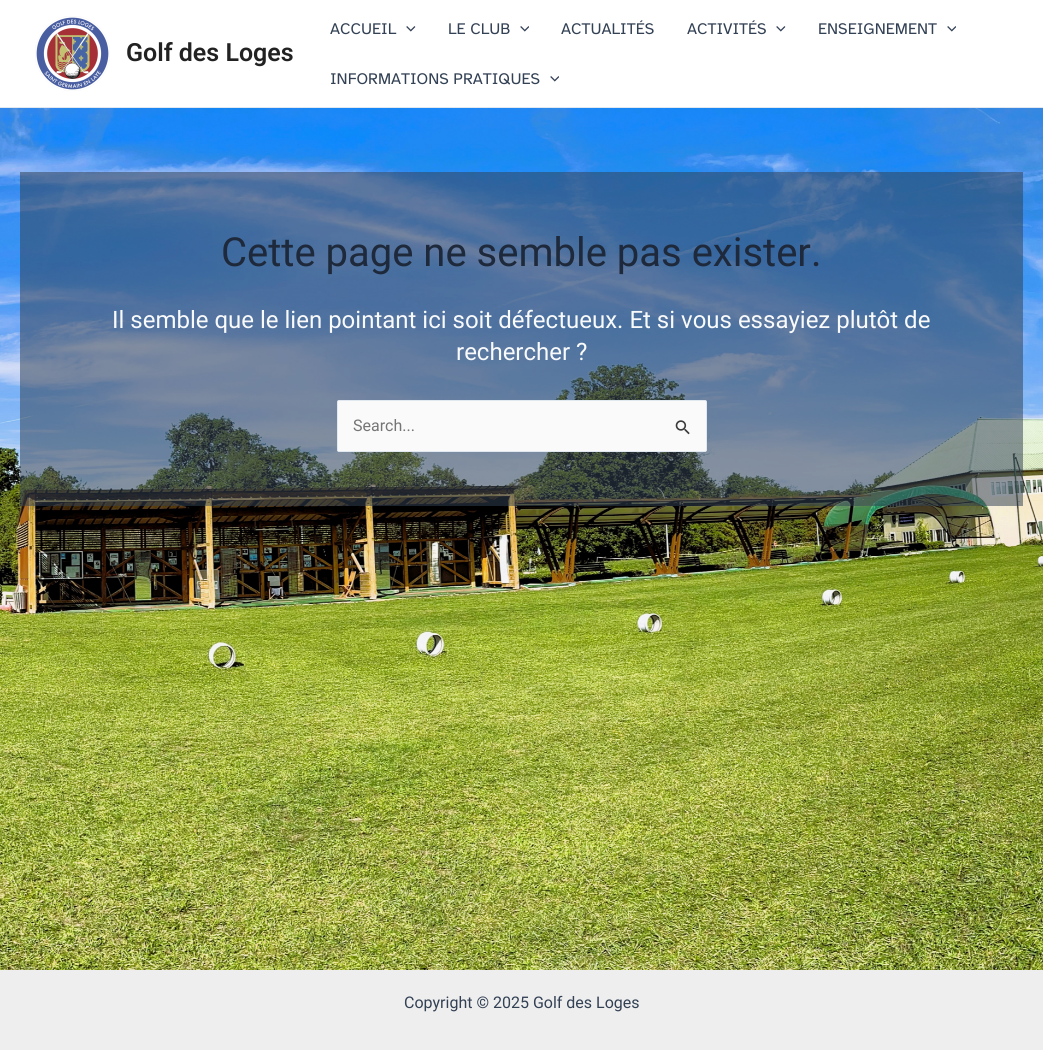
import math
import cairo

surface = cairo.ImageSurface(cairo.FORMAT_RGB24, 1043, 1050)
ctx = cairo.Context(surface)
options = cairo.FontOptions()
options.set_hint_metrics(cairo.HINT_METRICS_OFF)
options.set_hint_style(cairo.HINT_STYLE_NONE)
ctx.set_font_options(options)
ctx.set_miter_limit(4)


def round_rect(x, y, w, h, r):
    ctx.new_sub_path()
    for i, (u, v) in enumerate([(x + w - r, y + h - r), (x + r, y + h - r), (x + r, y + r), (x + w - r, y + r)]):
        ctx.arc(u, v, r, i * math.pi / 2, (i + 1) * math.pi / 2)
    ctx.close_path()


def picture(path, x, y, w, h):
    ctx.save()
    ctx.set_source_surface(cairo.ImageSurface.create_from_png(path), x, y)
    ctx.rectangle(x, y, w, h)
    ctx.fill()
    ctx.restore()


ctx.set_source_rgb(1, 1, 1)
ctx.paint()
picture("img1.png", 0, 108, 1043, 862)
ctx.set_source_rgb(0.886, 0.91, 0.941)
ctx.rectangle(0, 107, 1043, 1)
ctx.fill()
picture("img2.png", 35, 16, 75, 75)
ctx.select_font_face("Roboto SemiBold")
ctx.set_font_size(25)
ctx.set_source_rgb(0.133, 0.133, 0.133)
ctx.move_to(126, 61)
ctx.show_text("Golf des Loges")
ctx.select_font_face("Atkinson Hyperlegible")
ctx.set_font_size(16)
ctx.set_source_rgb(0.2, 0.255, 0.333)
ctx.move_to(330, 34)
ctx.show_text("ACCUEIL")
picture("img3.png", 406, 26, 10, 6)
ctx.move_to(448, 34)
ctx.show_text("LE CLUB")
picture("img4.png", 520, 26, 9, 6)
ctx.move_to(561, 34)
ctx.show_text("ACTUALITÉS")
ctx.move_to(687, 34)
ctx.show_text("ACTIVITÉS")
picture("img3.png", 776, 26, 10, 6)
ctx.move_to(818, 34)
ctx.show_text("ENSEIGNEMENT")
picture("img4.png", 947, 26, 9, 6)
ctx.move_to(330, 84)
ctx.show_text("INFORMATIONS PRATIQUES")
picture("img4.png", 550, 76, 9, 6)
ctx.set_source_rgba(0.196, 0.255, 0.329, 0.53)
ctx.rectangle(20, 172, 1003, 334)
ctx.fill()
ctx.select_font_face("Roboto")
ctx.set_font_size(40)
ctx.set_source_rgb(0.118, 0.161, 0.231)
ctx.move_to(221, 266)
ctx.show_text("Cette page ne semble pas exister.")
ctx.set_font_size(24)
ctx.set_source_rgb(0.976, 0.98, 0.984)
ctx.move_to(112, 328)
ctx.show_text("Il semble que le lien pointant ici soit défectueux. Et si vous essayiez plutôt de")
ctx.move_to(456, 360)
ctx.show_text("rechercher ?")
ctx.set_source_rgb(0.98, 0.98, 0.98)
round_rect(337.5, 400.5, 369, 51, 1.5)
ctx.fill_preserve()
ctx.set_source_rgb(0.886, 0.91, 0.941)
ctx.set_line_width(1)
ctx.stroke()
ctx.set_font_size(16)
ctx.set_source_rgb(0.459, 0.459, 0.459)
ctx.move_to(353, 431)
ctx.show_text("Search...")
picture("img5.png", 675, 420, 15, 15)
ctx.set_source_rgb(0.933, 0.933, 0.933)
ctx.rectangle(0, 970, 1043, 80)
ctx.fill()
ctx.set_source_rgb(0.2, 0.255, 0.333)
ctx.move_to(404, 1008)
ctx.show_text("Copyright © 2025 Golf des Loges")
surface.write_to_png("page.png")
